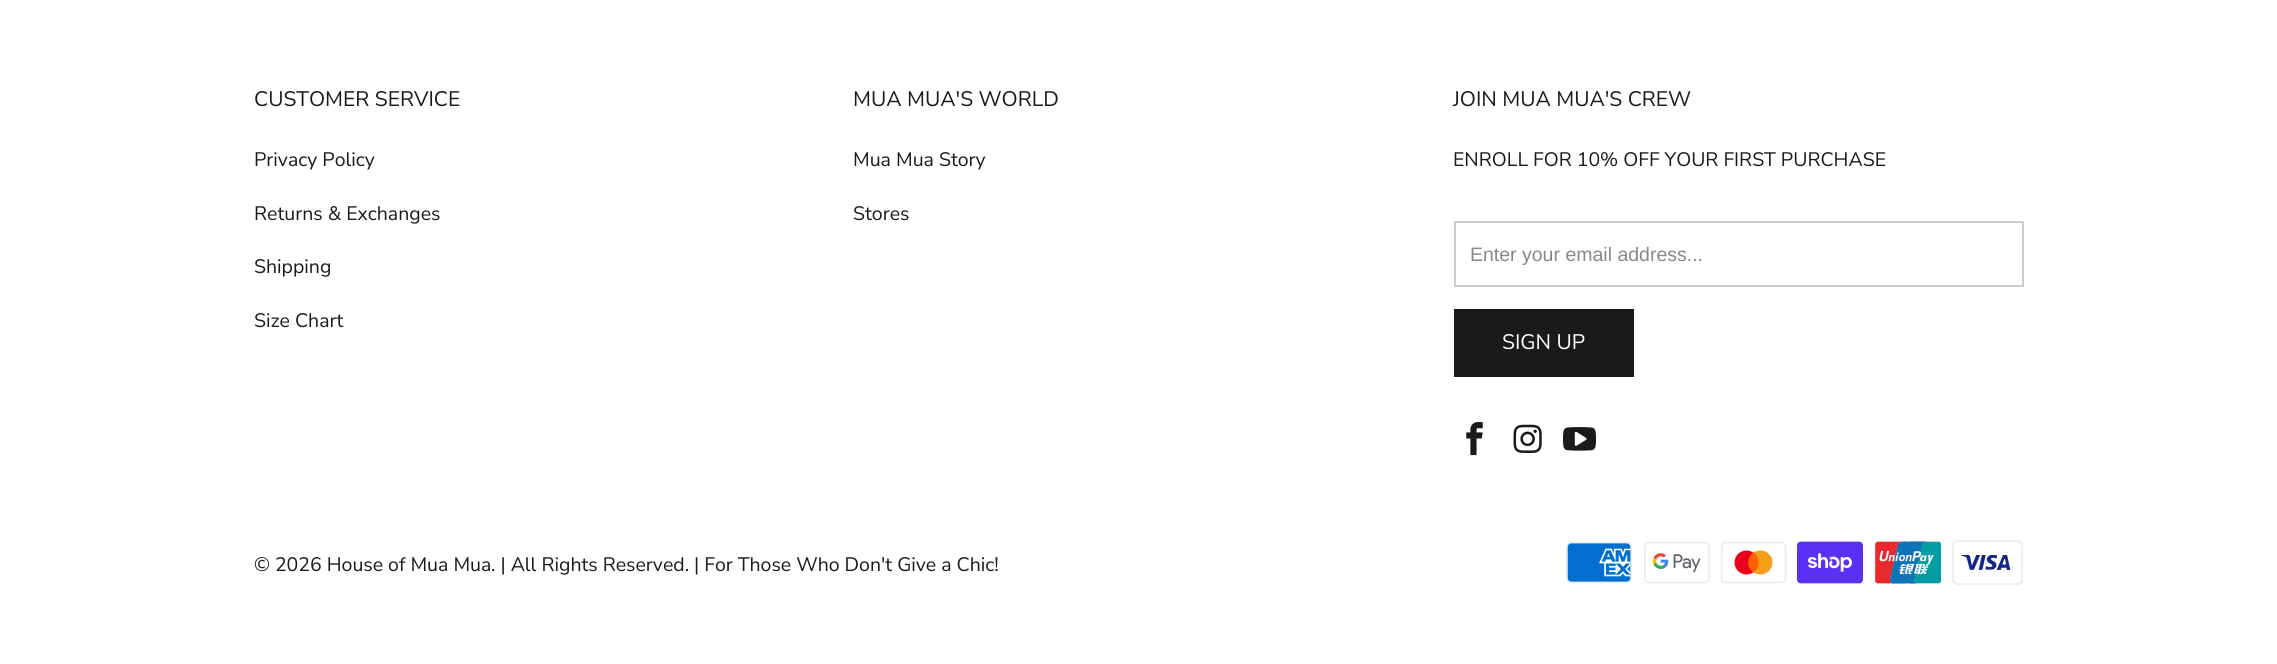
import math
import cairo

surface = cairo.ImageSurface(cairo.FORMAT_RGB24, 2277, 664)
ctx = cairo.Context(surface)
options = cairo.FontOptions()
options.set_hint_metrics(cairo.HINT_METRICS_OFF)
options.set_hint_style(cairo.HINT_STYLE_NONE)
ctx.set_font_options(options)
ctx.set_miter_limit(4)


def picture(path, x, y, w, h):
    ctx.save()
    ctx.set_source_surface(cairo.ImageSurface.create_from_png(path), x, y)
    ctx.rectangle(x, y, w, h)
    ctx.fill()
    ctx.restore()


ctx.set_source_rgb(1, 1, 1)
ctx.paint()
ctx.select_font_face("Nunito Sans")
ctx.set_font_size(21)
ctx.set_source_rgb(0.102, 0.102, 0.102)
ctx.move_to(254, 106)
ctx.show_text("CUSTOMER SERVICE")
ctx.set_font_size(19.5)
ctx.move_to(254, 166)
ctx.show_text("Privacy Policy")
ctx.move_to(254, 220)
ctx.show_text("Returns & Exchanges")
ctx.move_to(254, 273)
ctx.show_text("Shipping")
ctx.move_to(254, 327)
ctx.show_text("Size Chart")
ctx.set_font_size(21)
ctx.move_to(853, 106)
ctx.show_text("MUA MUA'S WORLD")
ctx.set_font_size(19.5)
ctx.move_to(853, 166)
ctx.show_text("Mua Mua Story")
ctx.move_to(853, 220)
ctx.show_text("Stores")
ctx.set_font_size(21)
ctx.move_to(1453, 106)
ctx.show_text("JOIN MUA MUA'S CREW")
ctx.set_font_size(19.5)
ctx.move_to(1453, 166)
ctx.show_text("ENROLL FOR 10% OFF YOUR FIRST PURCHASE")
ctx.rectangle(1455, 222, 568, 64)
ctx.set_source_rgb(0.8, 0.8, 0.8)
ctx.stroke()
ctx.select_font_face("Liberation Sans")
ctx.set_source_rgb(0.533, 0.533, 0.533)
ctx.move_to(1470, 261)
ctx.show_text("Enter your email address...")
ctx.set_source_rgb(0.102, 0.102, 0.102)
ctx.rectangle(1454, 309, 180, 68)
ctx.fill()
ctx.select_font_face("Nunito Sans")
ctx.set_font_size(21)
ctx.set_source_rgb(1, 1, 1)
ctx.move_to(1502, 349)
ctx.show_text("SIGN UP")
picture("img1.png", 1466, 422, 17, 34)
picture("img2.png", 1513, 424, 29, 29)
picture("img3.png", 1563, 427, 33, 24)
ctx.set_font_size(19.5)
ctx.set_source_rgb(0.102, 0.102, 0.102)
ctx.move_to(254, 571)
ctx.show_text("© 2026 House of Mua Mua")
ctx.move_to(491, 571)
ctx.show_text(". | All Rights Reserved. | For Those Who Don't Give a Chic!")
picture("img4.png", 1566, 541, 66, 43)
picture("img5.png", 1644, 541, 66, 43)
picture("img6.png", 1721, 541, 66, 43)
picture("img7.png", 1797, 541, 66, 43)
picture("img8.png", 1875, 541, 66, 43)
picture("img9.png", 1952, 540, 71, 45)
surface.write_to_png("page.png")
